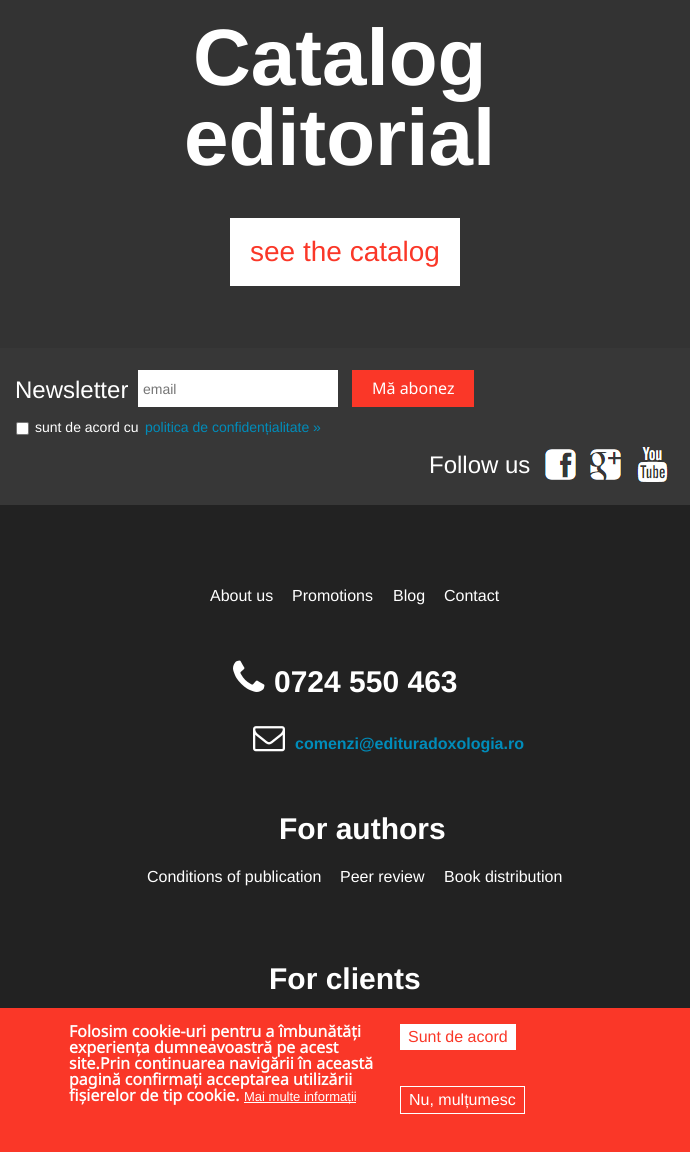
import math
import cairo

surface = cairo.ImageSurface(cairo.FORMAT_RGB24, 690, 1152)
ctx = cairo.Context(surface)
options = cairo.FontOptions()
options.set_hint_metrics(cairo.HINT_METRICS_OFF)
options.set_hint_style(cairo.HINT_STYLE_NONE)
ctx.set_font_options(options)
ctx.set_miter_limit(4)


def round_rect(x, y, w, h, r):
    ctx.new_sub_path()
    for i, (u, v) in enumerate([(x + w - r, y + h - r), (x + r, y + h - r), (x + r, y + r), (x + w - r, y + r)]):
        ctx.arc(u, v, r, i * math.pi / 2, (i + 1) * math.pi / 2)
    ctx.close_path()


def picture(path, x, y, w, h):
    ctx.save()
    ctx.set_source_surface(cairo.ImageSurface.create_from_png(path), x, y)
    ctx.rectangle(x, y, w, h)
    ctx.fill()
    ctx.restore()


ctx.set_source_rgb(0.2, 0.2, 0.2)
ctx.paint()
ctx.select_font_face("Liberation Sans", cairo.FONT_SLANT_NORMAL, cairo.FONT_WEIGHT_BOLD)
ctx.set_font_size(80)
ctx.set_source_rgb(1, 1, 1)
ctx.move_to(193, 85)
ctx.show_text("Catalog")
ctx.move_to(184, 165)
ctx.show_text("editorial")
ctx.rectangle(230, 218, 230, 68)
ctx.fill()
ctx.select_font_face("Liberation Sans")
ctx.set_font_size(28)
ctx.set_source_rgb(0.98, 0.216, 0.157)
ctx.move_to(250, 261)
ctx.show_text("see the catalog")
ctx.set_source_rgb(0.133, 0.133, 0.133)
ctx.rectangle(0, 505, 690, 503)
ctx.fill()
ctx.set_source_rgb(0.216, 0.216, 0.216)
ctx.rectangle(0, 348, 690, 157)
ctx.fill()
ctx.set_font_size(24)
ctx.set_source_rgb(1, 1, 1)
ctx.move_to(15, 398)
ctx.show_text("Newsletter")
ctx.rectangle(138, 370, 200, 37)
ctx.fill()
ctx.set_font_size(14)
ctx.set_source_rgb(0.459, 0.459, 0.459)
ctx.move_to(143, 394)
ctx.show_text("email")
ctx.set_source_rgb(0.98, 0.216, 0.157)
ctx.rectangle(352, 370, 122, 37)
ctx.fill()
ctx.select_font_face("Noto Sans")
ctx.set_font_size(16)
ctx.set_source_rgb(1, 1, 1)
ctx.move_to(372, 394)
ctx.show_text("Mă abonez")
round_rect(16.5, 422.5, 12, 12, 1.5)
ctx.fill_preserve()
ctx.set_source_rgb(0.463, 0.463, 0.463)
ctx.set_line_width(1)
ctx.stroke()
ctx.select_font_face("Liberation Sans")
ctx.set_font_size(14)
ctx.set_source_rgb(1, 1, 1)
ctx.move_to(35, 432)
ctx.show_text("sunt de acord cu")
ctx.set_source_rgb(0, 0.549, 0.729)
ctx.move_to(145, 432)
ctx.show_text("politica de confidențialitate »")
ctx.set_font_size(24)
ctx.set_source_rgb(1, 1, 1)
ctx.move_to(429, 473)
ctx.show_text("Follow us")
picture("img1.png", 545, 449, 31, 31)
picture("img2.png", 590, 449, 31, 31)
picture("img3.png", 637, 447, 31, 35)
ctx.set_font_size(16)
ctx.move_to(210, 601)
ctx.show_text("About us")
ctx.move_to(292, 601)
ctx.show_text("Promotions")
ctx.move_to(393, 601)
ctx.show_text("Blog")
ctx.move_to(444, 601)
ctx.show_text("Contact")
picture("img4.png", 233, 660, 32, 32)
ctx.select_font_face("Liberation Sans", cairo.FONT_SLANT_NORMAL, cairo.FONT_WEIGHT_BOLD)
ctx.set_font_size(30)
ctx.move_to(274, 692)
ctx.show_text("0724 550 463")
picture("img5.png", 253, 726, 32, 26)
ctx.set_font_size(16)
ctx.set_source_rgb(0, 0.549, 0.729)
ctx.move_to(295, 749)
ctx.show_text("comenzi@edituradoxologia.ro")
ctx.set_font_size(30)
ctx.set_source_rgb(1, 1, 1)
ctx.move_to(279, 839)
ctx.show_text("For authors")
ctx.select_font_face("Liberation Sans")
ctx.set_font_size(16)
ctx.move_to(147, 882)
ctx.show_text("Conditions of publication")
ctx.move_to(340, 882)
ctx.show_text("Peer review")
ctx.move_to(444, 882)
ctx.show_text("Book distribution")
ctx.select_font_face("Liberation Sans", cairo.FONT_SLANT_NORMAL, cairo.FONT_WEIGHT_BOLD)
ctx.set_font_size(30)
ctx.move_to(269, 989)
ctx.show_text("For clients")
ctx.set_source_rgb(0.98, 0.216, 0.157)
ctx.rectangle(0, 1008, 690, 144)
ctx.fill()
ctx.select_font_face("Noto Sans", cairo.FONT_SLANT_NORMAL, cairo.FONT_WEIGHT_BOLD)
ctx.set_font_size(16)
ctx.set_source_rgb(1, 1, 1)
ctx.move_to(69, 1037)
ctx.show_text("Folosim cookie-uri pentru a îmbunătăți")
ctx.move_to(69, 1053)
ctx.show_text("experiența dumneavoastră pe acest")
ctx.move_to(69, 1069)
ctx.show_text("site.Prin continuarea navigării în această")
ctx.move_to(69, 1085)
ctx.show_text("pagină confirmați acceptarea utilizării")
ctx.move_to(69, 1101)
ctx.show_text("fișierelor de tip cookie.")
ctx.rectangle(244, 1102, 112, 1)
ctx.fill()
ctx.select_font_face("Liberation Sans")
ctx.set_font_size(13)
ctx.move_to(244, 1101)
ctx.show_text("Mai multe informații")
ctx.rectangle(400, 1024, 116, 26)
ctx.fill()
ctx.set_font_size(16)
ctx.set_source_rgb(0.98, 0.216, 0.157)
ctx.move_to(408, 1042)
ctx.show_text("Sunt de acord")
ctx.rectangle(400.5, 1086.5, 124, 27)
ctx.set_source_rgb(1, 1, 1)
ctx.stroke()
ctx.move_to(409, 1105)
ctx.show_text("Nu, mulțumesc")
surface.write_to_png("page.png")
